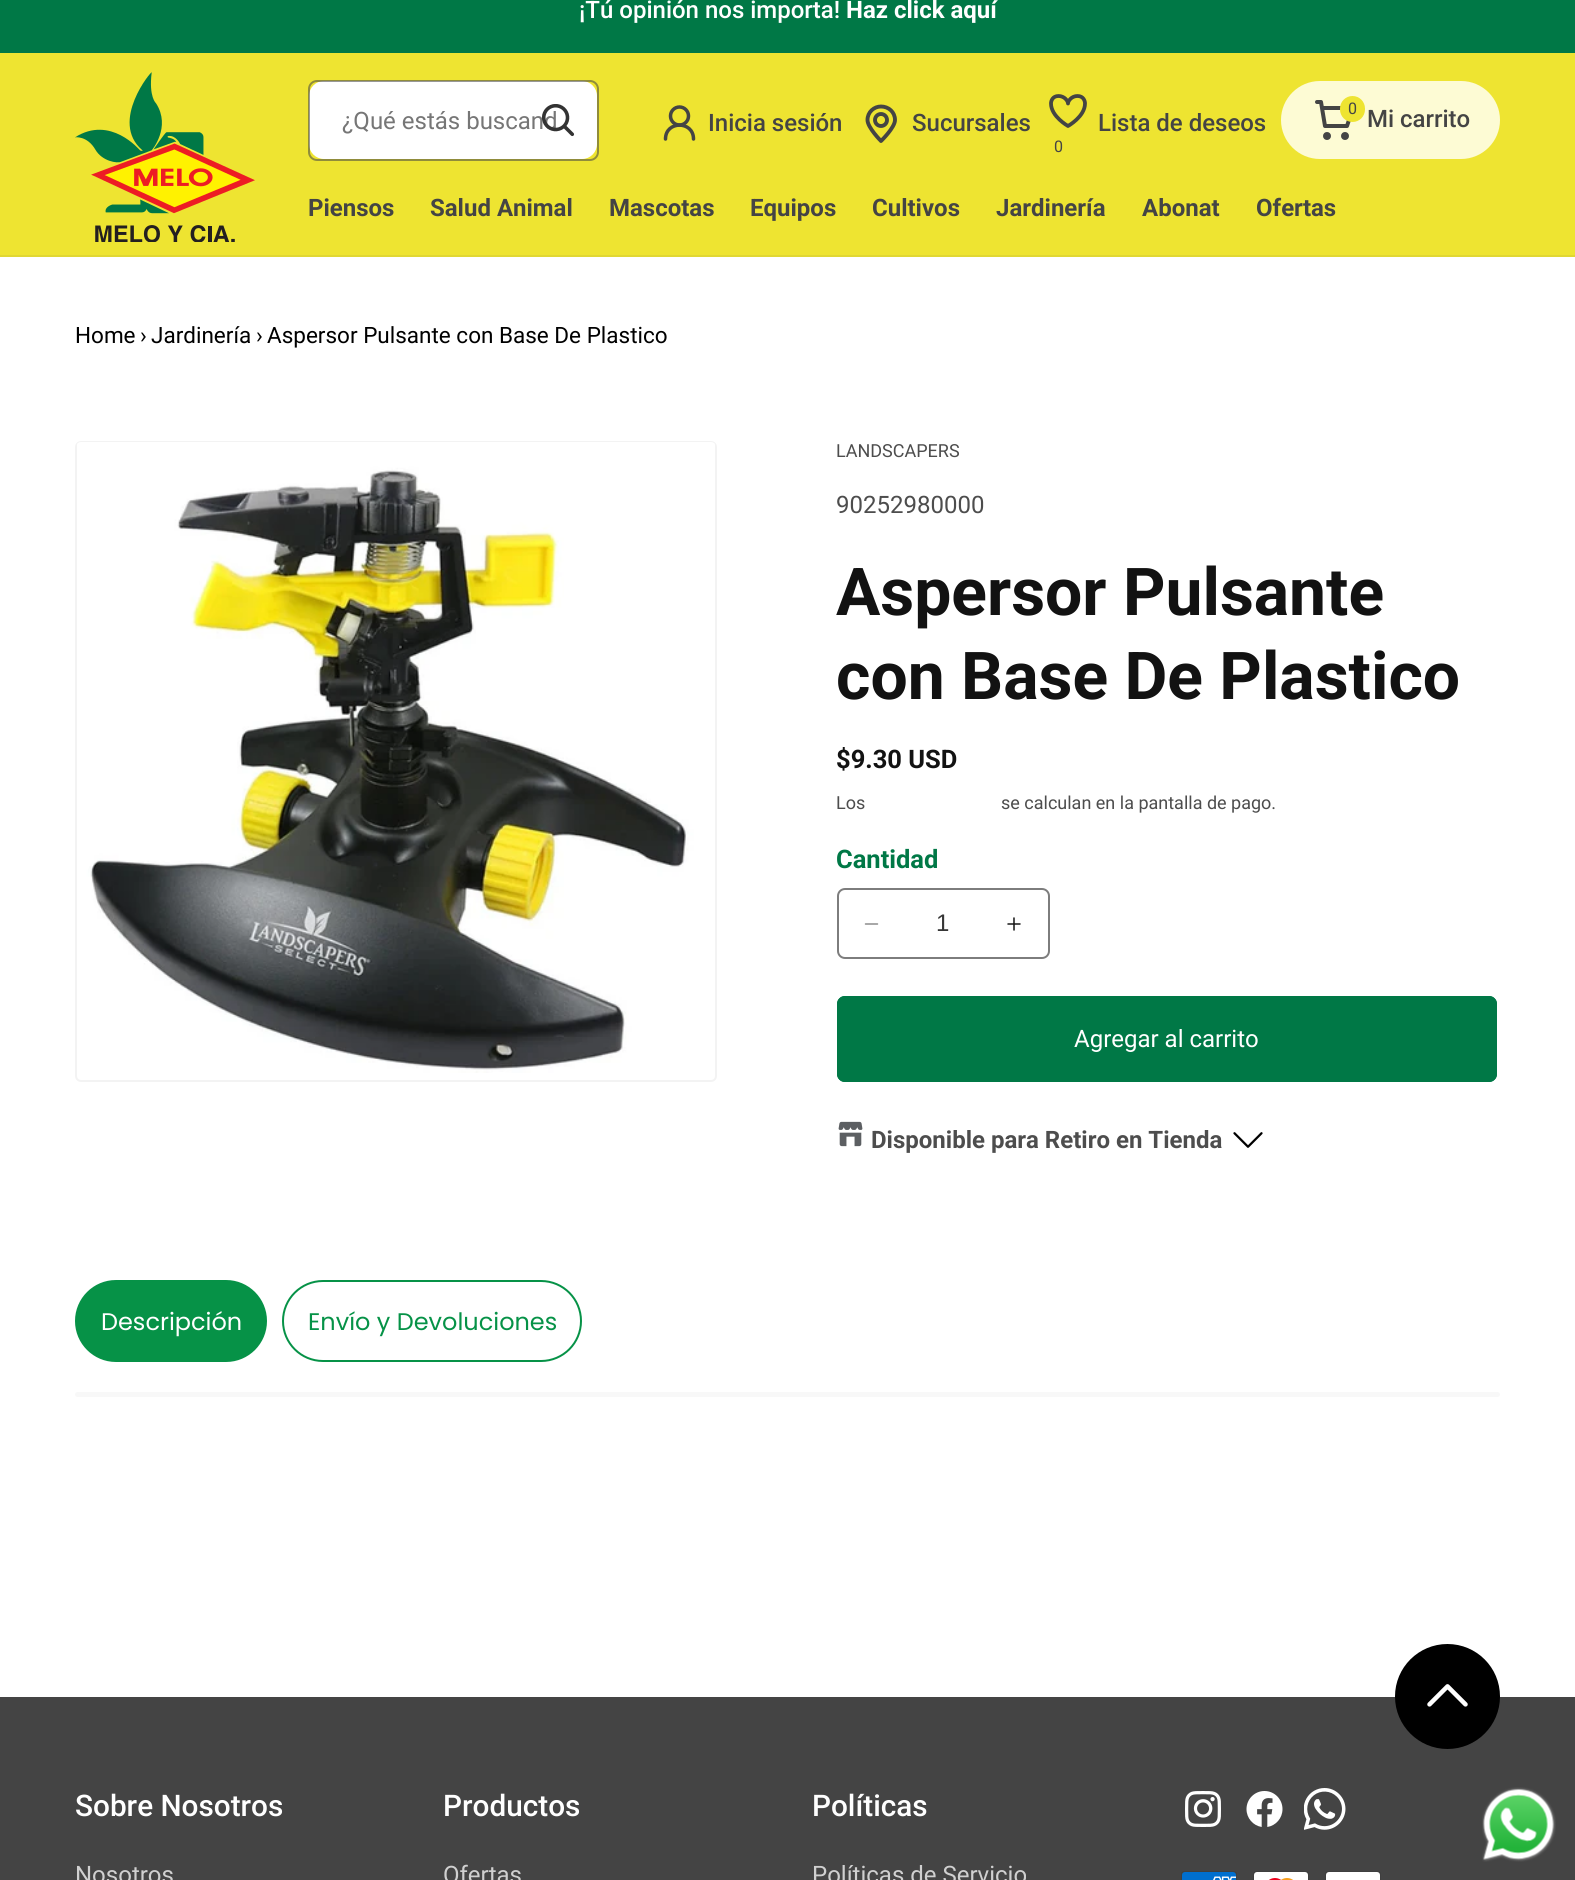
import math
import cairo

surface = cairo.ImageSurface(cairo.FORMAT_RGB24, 1575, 1880)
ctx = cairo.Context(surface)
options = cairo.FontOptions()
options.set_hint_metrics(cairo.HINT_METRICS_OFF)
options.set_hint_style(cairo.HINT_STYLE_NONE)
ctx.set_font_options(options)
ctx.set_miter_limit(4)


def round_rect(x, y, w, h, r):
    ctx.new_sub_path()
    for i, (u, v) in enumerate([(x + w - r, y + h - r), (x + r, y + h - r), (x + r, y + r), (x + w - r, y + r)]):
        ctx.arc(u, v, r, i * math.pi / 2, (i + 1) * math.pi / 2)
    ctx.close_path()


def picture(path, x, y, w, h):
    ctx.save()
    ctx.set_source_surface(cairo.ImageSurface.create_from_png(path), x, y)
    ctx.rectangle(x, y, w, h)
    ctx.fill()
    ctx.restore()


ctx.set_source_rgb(1, 1, 1)
ctx.paint()
ctx.set_source_rgb(0, 0.471, 0.275)
ctx.rectangle(0, 0, 1575, 53)
ctx.fill()
ctx.select_font_face("Roboto Medium")
ctx.set_font_size(24)
ctx.set_source_rgb(1, 1, 1)
ctx.move_to(579, 18)
ctx.show_text("¡Tú opinión nos importa!")
ctx.select_font_face("Roboto", cairo.FONT_SLANT_NORMAL, cairo.FONT_WEIGHT_BOLD)
ctx.move_to(846, 18)
ctx.show_text("Haz click aquí")
ctx.set_source_rgb(0.933, 0.894, 0.192)
ctx.rectangle(0, 53, 1575, 202)
ctx.fill()
ctx.set_source_rgb(0.878, 0.843, 0.2)
ctx.rectangle(0, 255, 1575, 2)
ctx.fill()
picture("img1.png", 75, 72, 180, 170)
ctx.set_source_rgb(1, 1, 1)
round_rect(309, 81, 288, 78, 15)
ctx.fill()
ctx.select_font_face("Roboto")
ctx.set_source_rgb(0.463, 0.463, 0.463)
ctx.move_to(342, 129)
ctx.show_text("¿Qué estás buscand")
picture("img2.png", 542, 104, 33, 33)
round_rect(309, 81, 289, 79, 8)
ctx.set_source_rgba(0.267, 0.267, 0.267, 0.55)
ctx.stroke()
ctx.arc(679.5, 116, 9, 0, 2 * math.pi)
ctx.set_source_rgb(0.267, 0.267, 0.267)
ctx.set_line_width(3.5)
ctx.stroke()
ctx.new_path()
ctx.move_to(693.5, 139)
ctx.curve_to(693.5, 120.5, 665.5, 120.5, 665.5, 139)
ctx.move_to(693.5, 139)
ctx.curve_to(693.5, 120.5, 665.5, 120.5, 665.5, 139)
ctx.set_line_cap(cairo.LINE_CAP_ROUND)
ctx.set_line_join(cairo.LINE_JOIN_ROUND)
ctx.stroke()
ctx.select_font_face("Roboto Medium")
ctx.move_to(708, 131)
ctx.show_text("Inicia sesión")
ctx.new_path()
ctx.move_to(895, 120)
ctx.curve_to(895, 127.5, 881, 141, 881, 141)
ctx.curve_to(881, 141, 867.5, 127.5, 867.5, 120)
ctx.curve_to(867.5, 112, 874, 106.5, 881, 106.5)
ctx.curve_to(888.5, 106.5, 895, 112, 895, 120)
ctx.set_line_width(3.9)
ctx.stroke()
ctx.arc(881, 120, 6, 0, 2 * math.pi)
ctx.set_line_cap(cairo.LINE_CAP_BUTT)
ctx.set_line_join(cairo.LINE_JOIN_MITER)
ctx.stroke()
ctx.move_to(912, 131)
ctx.show_text("Sucursales")
ctx.move_to(1098, 131)
ctx.show_text("Lista de deseos")
ctx.new_path()
ctx.move_to(1077.5, 96)
ctx.curve_to(1071.5, 96, 1068, 101, 1068, 103.5)
ctx.curve_to(1068, 101, 1064.5, 96, 1058.5, 96)
ctx.curve_to(1052.5, 96, 1051, 101, 1051, 103.5)
ctx.curve_to(1051, 116.5, 1068, 126, 1068, 126)
ctx.curve_to(1068, 126, 1085, 116.5, 1085, 103.5)
ctx.curve_to(1085, 101, 1083.5, 96, 1077.5, 96)
ctx.set_line_width(3.8)
ctx.set_line_cap(cairo.LINE_CAP_ROUND)
ctx.set_line_join(cairo.LINE_JOIN_ROUND)
ctx.stroke()
ctx.select_font_face("Roboto")
ctx.set_font_size(16)
ctx.move_to(1054, 152)
ctx.show_text("0")
ctx.set_source_rgb(0.992, 0.984, 0.831)
round_rect(1281, 81, 219, 78, 39)
ctx.fill()
ctx.new_path()
ctx.move_to(1317, 102)
ctx.line_to(1321, 102)
ctx.line_to(1322, 108)
ctx.move_to(1322, 108)
ctx.line_to(1325, 126)
ctx.line_to(1347, 126)
ctx.line_to(1353, 108)
ctx.close_path()
ctx.set_source_rgb(0.267, 0.267, 0.267)
ctx.set_line_width(4)
ctx.stroke()
ctx.arc(1327, 136, 2, 0, 2 * math.pi)
ctx.set_line_cap(cairo.LINE_CAP_BUTT)
ctx.set_line_join(cairo.LINE_JOIN_MITER)
ctx.stroke()
ctx.arc(1345, 136, 2, 0, 2 * math.pi)
ctx.stroke()
ctx.set_source_rgb(0.933, 0.894, 0.192)
round_rect(1340, 96, 25, 26, 12.5)
ctx.fill()
ctx.set_source_rgb(0.267, 0.267, 0.267)
ctx.move_to(1348, 114)
ctx.show_text("0")
ctx.select_font_face("Roboto Medium")
ctx.set_font_size(24)
ctx.move_to(1367, 127)
ctx.show_text("Mi carrito")
ctx.select_font_face("Roboto", cairo.FONT_SLANT_NORMAL, cairo.FONT_WEIGHT_BOLD)
ctx.move_to(308, 216)
ctx.show_text("Piensos")
ctx.move_to(430, 216)
ctx.show_text("Salud Animal")
ctx.move_to(609, 216)
ctx.show_text("Mascotas")
ctx.move_to(750, 216)
ctx.show_text("Equipos")
ctx.move_to(872, 216)
ctx.show_text("Cultivos")
ctx.move_to(996, 216)
ctx.show_text("Jardinería")
ctx.move_to(1142, 216)
ctx.show_text("Abonat")
ctx.move_to(1256, 216)
ctx.show_text("Ofertas")
ctx.select_font_face("Roboto")
ctx.set_font_size(22.5)
ctx.set_source_rgb(0, 0, 0)
ctx.move_to(75, 343)
ctx.show_text("Home")
ctx.move_to(140, 343)
ctx.show_text("›")
ctx.move_to(151, 343)
ctx.show_text("Jardinería")
ctx.move_to(256, 343)
ctx.show_text("›")
ctx.move_to(267, 343)
ctx.show_text("Aspersor Pulsante con Base De Plastico")
round_rect(76, 442, 640, 639, 5)
ctx.set_source_rgb(0.953, 0.953, 0.953)
ctx.set_line_width(2)
ctx.stroke()
picture("img3.png", 77, 442, 638, 631)
ctx.set_font_size(18)
ctx.set_source_rgb(0.302, 0.302, 0.302)
ctx.move_to(836, 457)
ctx.show_text("LANDSCAPERS")
ctx.set_font_size(24)
ctx.move_to(836, 513)
ctx.show_text("90252980000")
ctx.select_font_face("Roboto", cairo.FONT_SLANT_NORMAL, cairo.FONT_WEIGHT_BOLD)
ctx.set_font_size(66)
ctx.set_source_rgb(0.071, 0.071, 0.071)
ctx.move_to(836, 615)
ctx.show_text("Aspersor Pulsante")
ctx.move_to(836, 699)
ctx.show_text("con Base De Plastico")
ctx.set_font_size(25.5)
ctx.move_to(836, 768)
ctx.show_text("$9.30 USD")
ctx.select_font_face("Roboto")
ctx.set_font_size(18)
ctx.set_source_rgb(0.302, 0.302, 0.302)
ctx.move_to(836, 809)
ctx.show_text("Los")
ctx.move_to(1001, 809)
ctx.show_text("se calculan en la pantalla de pago.")
ctx.select_font_face("Roboto", cairo.FONT_SLANT_NORMAL, cairo.FONT_WEIGHT_BOLD)
ctx.set_font_size(25.5)
ctx.set_source_rgb(0, 0.471, 0.275)
ctx.move_to(836, 868)
ctx.show_text("Cantidad")
picture("img4.png", 864, 923, 15, 2)
picture("img5.png", 1007, 917, 14, 14)
round_rect(838, 889, 211, 69, 7)
ctx.set_source_rgb(0.49, 0.49, 0.49)
ctx.stroke()
ctx.select_font_face("Liberation Sans")
ctx.set_font_size(24)
ctx.set_source_rgb(0.212, 0.212, 0.212)
ctx.move_to(936, 931)
ctx.show_text("1")
ctx.set_source_rgb(0, 0.471, 0.275)
round_rect(837, 996, 660, 86, 8)
ctx.fill()
round_rect(838, 997, 658, 84, 7)
ctx.stroke()
ctx.select_font_face("Roboto")
ctx.set_source_rgb(1, 1, 1)
ctx.move_to(1074, 1047)
ctx.show_text("Agregar al carrito")
picture("img6.png", 838, 1121, 25, 26)
ctx.select_font_face("Roboto", cairo.FONT_SLANT_NORMAL, cairo.FONT_WEIGHT_BOLD)
ctx.set_source_rgb(0.302, 0.302, 0.302)
ctx.move_to(871, 1148)
ctx.show_text("Disponible para Retiro en Tienda")
picture("img7.png", 1233, 1132, 30, 16)
ctx.set_source_rgb(0.027, 0.573, 0.278)
round_rect(76, 1281, 190, 80, 40)
ctx.fill_preserve()
ctx.stroke()
ctx.select_font_face("Poppins")
ctx.set_source_rgb(1, 1, 1)
ctx.move_to(101, 1330)
ctx.show_text("Descripción")
round_rect(283, 1281, 298, 80, 40)
ctx.set_source_rgb(0.027, 0.573, 0.278)
ctx.stroke()
ctx.move_to(308, 1330)
ctx.show_text("Envío y Devoluciones")
ctx.set_source_rgb(0.969, 0.969, 0.969)
round_rect(75, 1392, 1425, 5, 2.5)
ctx.fill()
ctx.set_source_rgb(0.267, 0.267, 0.267)
ctx.rectangle(0, 1697, 1575, 183)
ctx.fill()
ctx.set_source_rgb(0, 0, 0)
ctx.arc(1447.5, 1696.5, 52.5, 0, 2 * math.pi)
ctx.fill()
picture("img8.png", 1427, 1684, 41, 23)
ctx.select_font_face("Roboto Medium")
ctx.set_font_size(29.75)
ctx.set_source_rgb(1, 1, 1)
ctx.move_to(75, 1816)
ctx.show_text("Sobre Nosotros")
ctx.select_font_face("Roboto")
ctx.set_font_size(24)
ctx.set_source_rgb(0.816, 0.816, 0.816)
ctx.move_to(75, 1883)
ctx.show_text("Nosotros")
ctx.select_font_face("Roboto Medium")
ctx.set_font_size(29.75)
ctx.set_source_rgb(1, 1, 1)
ctx.move_to(443, 1816)
ctx.show_text("Productos")
ctx.select_font_face("Roboto")
ctx.set_font_size(24)
ctx.set_source_rgb(0.816, 0.816, 0.816)
ctx.move_to(443, 1883)
ctx.show_text("Ofertas")
ctx.select_font_face("Roboto Medium")
ctx.set_font_size(29.75)
ctx.set_source_rgb(1, 1, 1)
ctx.move_to(812, 1816)
ctx.show_text("Políticas")
ctx.select_font_face("Roboto")
ctx.set_font_size(24)
ctx.set_source_rgb(0.816, 0.816, 0.816)
ctx.move_to(812, 1883)
ctx.show_text("Políticas de Servicio")
picture("img9.png", 1185, 1791, 36, 36)
picture("img10.png", 1246, 1791, 37, 36)
picture("img11.png", 1304, 1788, 42, 42)
picture("img12.png", 1181, 1871, 56, 9)
picture("img13.png", 1253, 1871, 56, 9)
picture("img14.png", 1325, 1871, 56, 9)
picture("img15.png", 1482, 1787, 74, 75)
surface.write_to_png("page.png")
